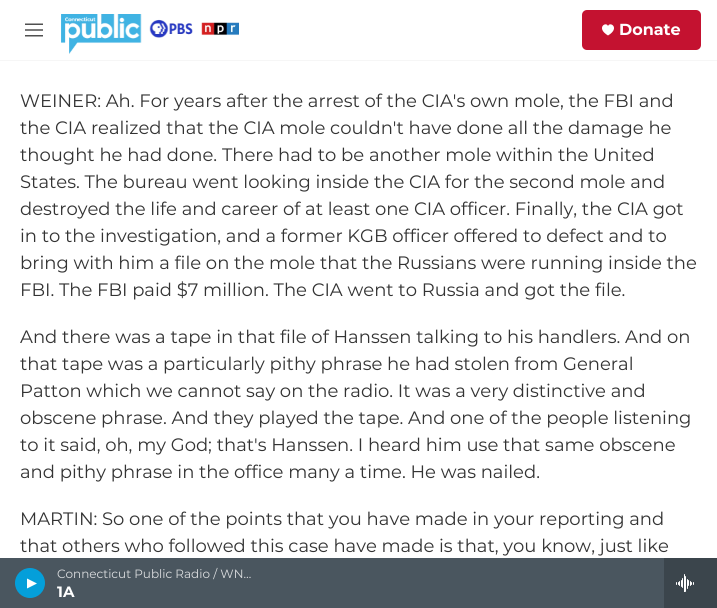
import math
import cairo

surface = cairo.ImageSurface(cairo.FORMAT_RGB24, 717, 608)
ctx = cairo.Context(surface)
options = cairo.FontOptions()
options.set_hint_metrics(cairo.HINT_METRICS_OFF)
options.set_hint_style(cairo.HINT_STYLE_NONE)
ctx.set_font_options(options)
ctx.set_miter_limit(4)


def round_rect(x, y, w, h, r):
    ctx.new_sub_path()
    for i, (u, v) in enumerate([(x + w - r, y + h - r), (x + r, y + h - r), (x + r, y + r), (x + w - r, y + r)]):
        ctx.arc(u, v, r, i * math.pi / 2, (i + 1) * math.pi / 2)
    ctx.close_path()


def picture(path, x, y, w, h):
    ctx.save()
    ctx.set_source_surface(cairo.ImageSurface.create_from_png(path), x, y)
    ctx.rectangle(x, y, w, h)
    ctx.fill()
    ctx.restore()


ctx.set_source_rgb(1, 1, 1)
ctx.paint()
ctx.set_source_rgb(0.961, 0.961, 0.961)
ctx.rectangle(0, 60, 717, 1)
ctx.fill()
picture("img1.png", 25, 23, 18, 14)
picture("img2.png", 61, 14, 178, 40)
ctx.set_source_rgb(0.769, 0.071, 0.188)
round_rect(582, 10, 119, 40, 5)
ctx.fill()
ctx.set_source_rgb(1, 1, 1)
ctx.new_path()
ctx.move_to(608, 26)
ctx.curve_to(606, 21, 595.5, 28, 608, 35.5)
ctx.curve_to(620.5, 28, 610, 21, 608, 26)
ctx.close_path()
ctx.fill()
ctx.select_font_face("Montserrat", cairo.FONT_SLANT_NORMAL, cairo.FONT_WEIGHT_BOLD)
ctx.set_font_size(16)
ctx.move_to(619, 35)
ctx.show_text("Donate")
ctx.set_source_rgb(0.29, 0.337, 0.373)
ctx.rectangle(0, 558, 664, 50)
ctx.fill()
ctx.set_source_rgb(0.016, 0.624, 0.855)
ctx.arc(30, 583, 15, 0, 2 * math.pi)
ctx.fill()
ctx.set_source_rgb(1, 1, 1)
ctx.new_path()
ctx.move_to(27, 578.5)
ctx.line_to(37, 583.5)
ctx.line_to(27, 588.5)
ctx.close_path()
ctx.fill()
ctx.select_font_face("Montserrat")
ctx.set_font_size(12)
ctx.set_source_rgb(0.859, 0.867, 0.875)
ctx.move_to(57, 578)
ctx.show_text("Connecticut Public Radio / WN…")
ctx.select_font_face("Montserrat", cairo.FONT_SLANT_NORMAL, cairo.FONT_WEIGHT_BOLD)
ctx.set_font_size(15)
ctx.set_source_rgb(1, 1, 1)
ctx.move_to(57, 597)
ctx.show_text("1A")
ctx.set_source_rgb(0.231, 0.271, 0.298)
ctx.rectangle(664, 558, 53, 50)
ctx.fill()
picture("img3.png", 676, 574, 18, 18)
ctx.select_font_face("Montserrat")
ctx.set_font_size(18)
ctx.set_source_rgb(0.2, 0.2, 0.2)
ctx.move_to(20, 107)
ctx.show_text("WEINER: Ah. For years after the arrest of the CIA's own mole, the FBI and")
ctx.move_to(20, 134)
ctx.show_text("the CIA realized that the CIA mole couldn't have done all the damage he")
ctx.move_to(20, 161)
ctx.show_text("thought he had done. There had to be another mole within the United")
ctx.move_to(20, 188)
ctx.show_text("States. The bureau went looking inside the CIA for the second mole and")
ctx.move_to(20, 215)
ctx.show_text("destroyed the life and career of at least one CIA officer. Finally, the CIA got")
ctx.move_to(20, 242)
ctx.show_text("in to the investigation, and a former KGB officer offered to defect and to")
ctx.move_to(20, 269)
ctx.show_text("bring with him a file on the mole that the Russians were running inside the")
ctx.move_to(20, 296)
ctx.show_text("FBI. The FBI paid $7 million. The CIA went to Russia and got the file.")
ctx.move_to(20, 343)
ctx.show_text("And there was a tape in that file of Hanssen talking to his handlers. And on")
ctx.move_to(20, 370)
ctx.show_text("that tape was a particularly pithy phrase he had stolen from General")
ctx.move_to(20, 397)
ctx.show_text("Patton which we cannot say on the radio. It was a very distinctive and")
ctx.move_to(20, 424)
ctx.show_text("obscene phrase. And they played the tape. And one of the people listening")
ctx.move_to(20, 451)
ctx.show_text("to it said, oh, my God; that's Hanssen. I heard him use that same obscene")
ctx.move_to(20, 478)
ctx.show_text("and pithy phrase in the office many a time. He was nailed.")
ctx.move_to(20, 525)
ctx.show_text("MARTIN: So one of the points that you have made in your reporting and")
ctx.move_to(20, 552)
ctx.show_text("that others who followed this case have made is that, you know, just like")
surface.write_to_png("page.png")
